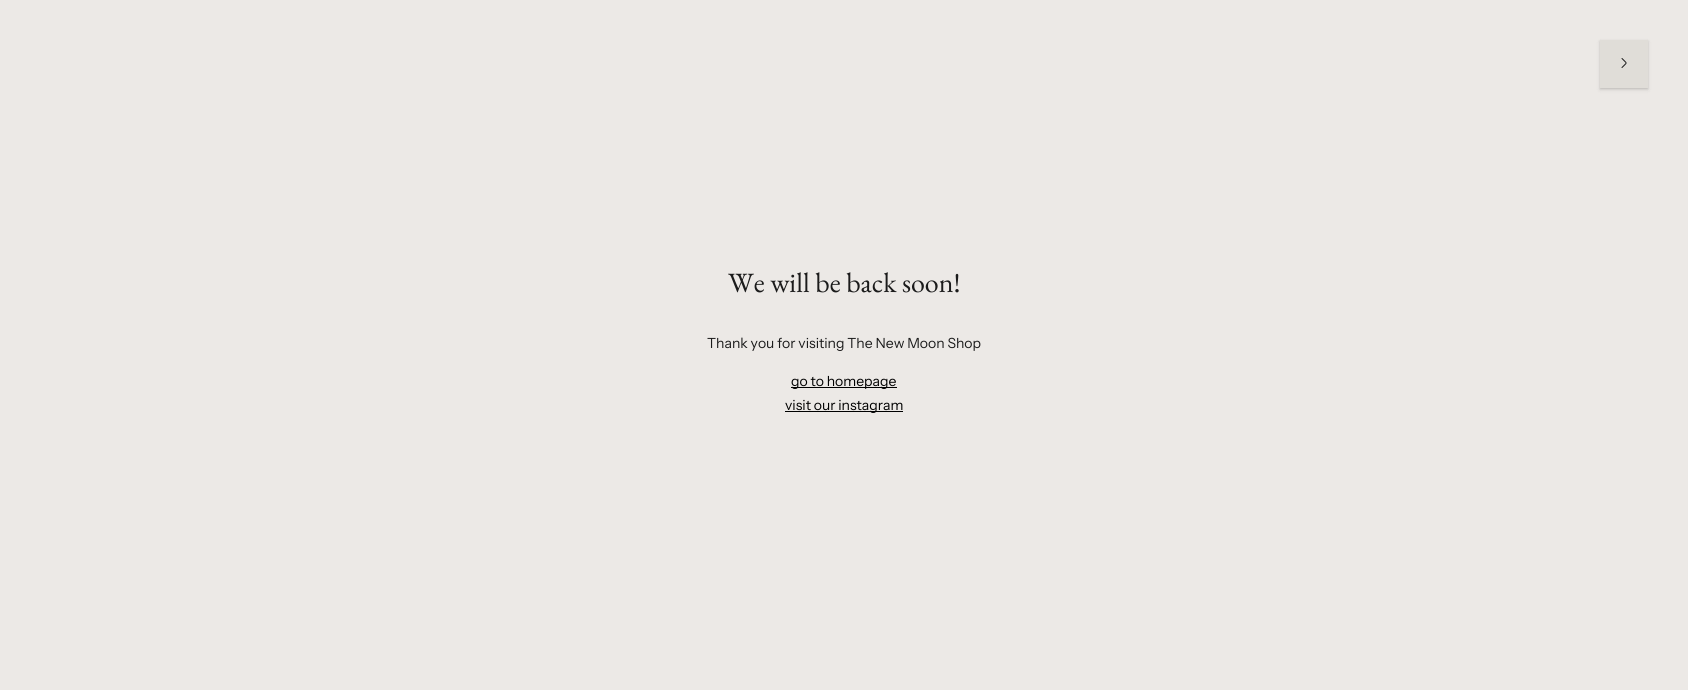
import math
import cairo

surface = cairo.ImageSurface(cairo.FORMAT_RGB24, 1688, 690)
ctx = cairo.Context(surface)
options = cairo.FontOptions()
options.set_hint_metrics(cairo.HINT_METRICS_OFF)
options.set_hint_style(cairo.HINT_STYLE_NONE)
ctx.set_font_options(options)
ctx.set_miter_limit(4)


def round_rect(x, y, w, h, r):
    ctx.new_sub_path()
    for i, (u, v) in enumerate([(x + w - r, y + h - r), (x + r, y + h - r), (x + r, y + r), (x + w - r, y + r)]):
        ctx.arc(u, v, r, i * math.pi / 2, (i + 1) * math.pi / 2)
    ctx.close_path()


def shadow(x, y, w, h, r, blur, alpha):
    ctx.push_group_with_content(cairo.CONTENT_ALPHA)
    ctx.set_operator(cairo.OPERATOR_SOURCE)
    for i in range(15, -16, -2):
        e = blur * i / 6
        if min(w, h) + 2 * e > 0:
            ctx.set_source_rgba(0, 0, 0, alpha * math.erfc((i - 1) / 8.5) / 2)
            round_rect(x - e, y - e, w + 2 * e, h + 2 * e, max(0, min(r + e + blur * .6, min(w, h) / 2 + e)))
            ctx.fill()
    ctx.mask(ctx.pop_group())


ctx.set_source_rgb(0.922, 0.914, 0.902)
ctx.paint()
ctx.set_source_rgb(0, 0, 0)
shadow(1600, 41, 48, 48, 0, 1, 0.12)
ctx.set_source_rgb(0.102, 0.102, 0.102)
shadow(1600, 42, 48, 48, 0, 2, 0.1)
ctx.set_source_rgb(0.878, 0.867, 0.847)
ctx.rectangle(1600, 40, 48, 48)
ctx.fill()
ctx.new_path()
ctx.move_to(1622, 58.5)
ctx.curve_to(1627.5, 64.5, 1627.5, 61.5, 1622, 67.5)
ctx.set_source_rgb(0.106, 0.106, 0.106)
ctx.set_line_width(1)
ctx.set_line_cap(cairo.LINE_CAP_ROUND)
ctx.set_line_join(cairo.LINE_JOIN_ROUND)
ctx.stroke()
ctx.select_font_face("EB Garamond")
ctx.set_font_size(28)
ctx.move_to(728, 292)
ctx.show_text("We will be back soon!")
ctx.select_font_face("Instrument Sans")
ctx.set_font_size(14)
ctx.move_to(707, 348)
ctx.show_text("Thank you for visiting The New Moon Shop")
ctx.set_source_rgb(0, 0, 0)
ctx.rectangle(791, 387, 106, 1)
ctx.fill()
ctx.move_to(791, 386)
ctx.show_text("go to homepage")
ctx.rectangle(785, 411, 118, 1)
ctx.fill()
ctx.move_to(785, 410)
ctx.show_text("visit our instagram")
surface.write_to_png("page.png")
